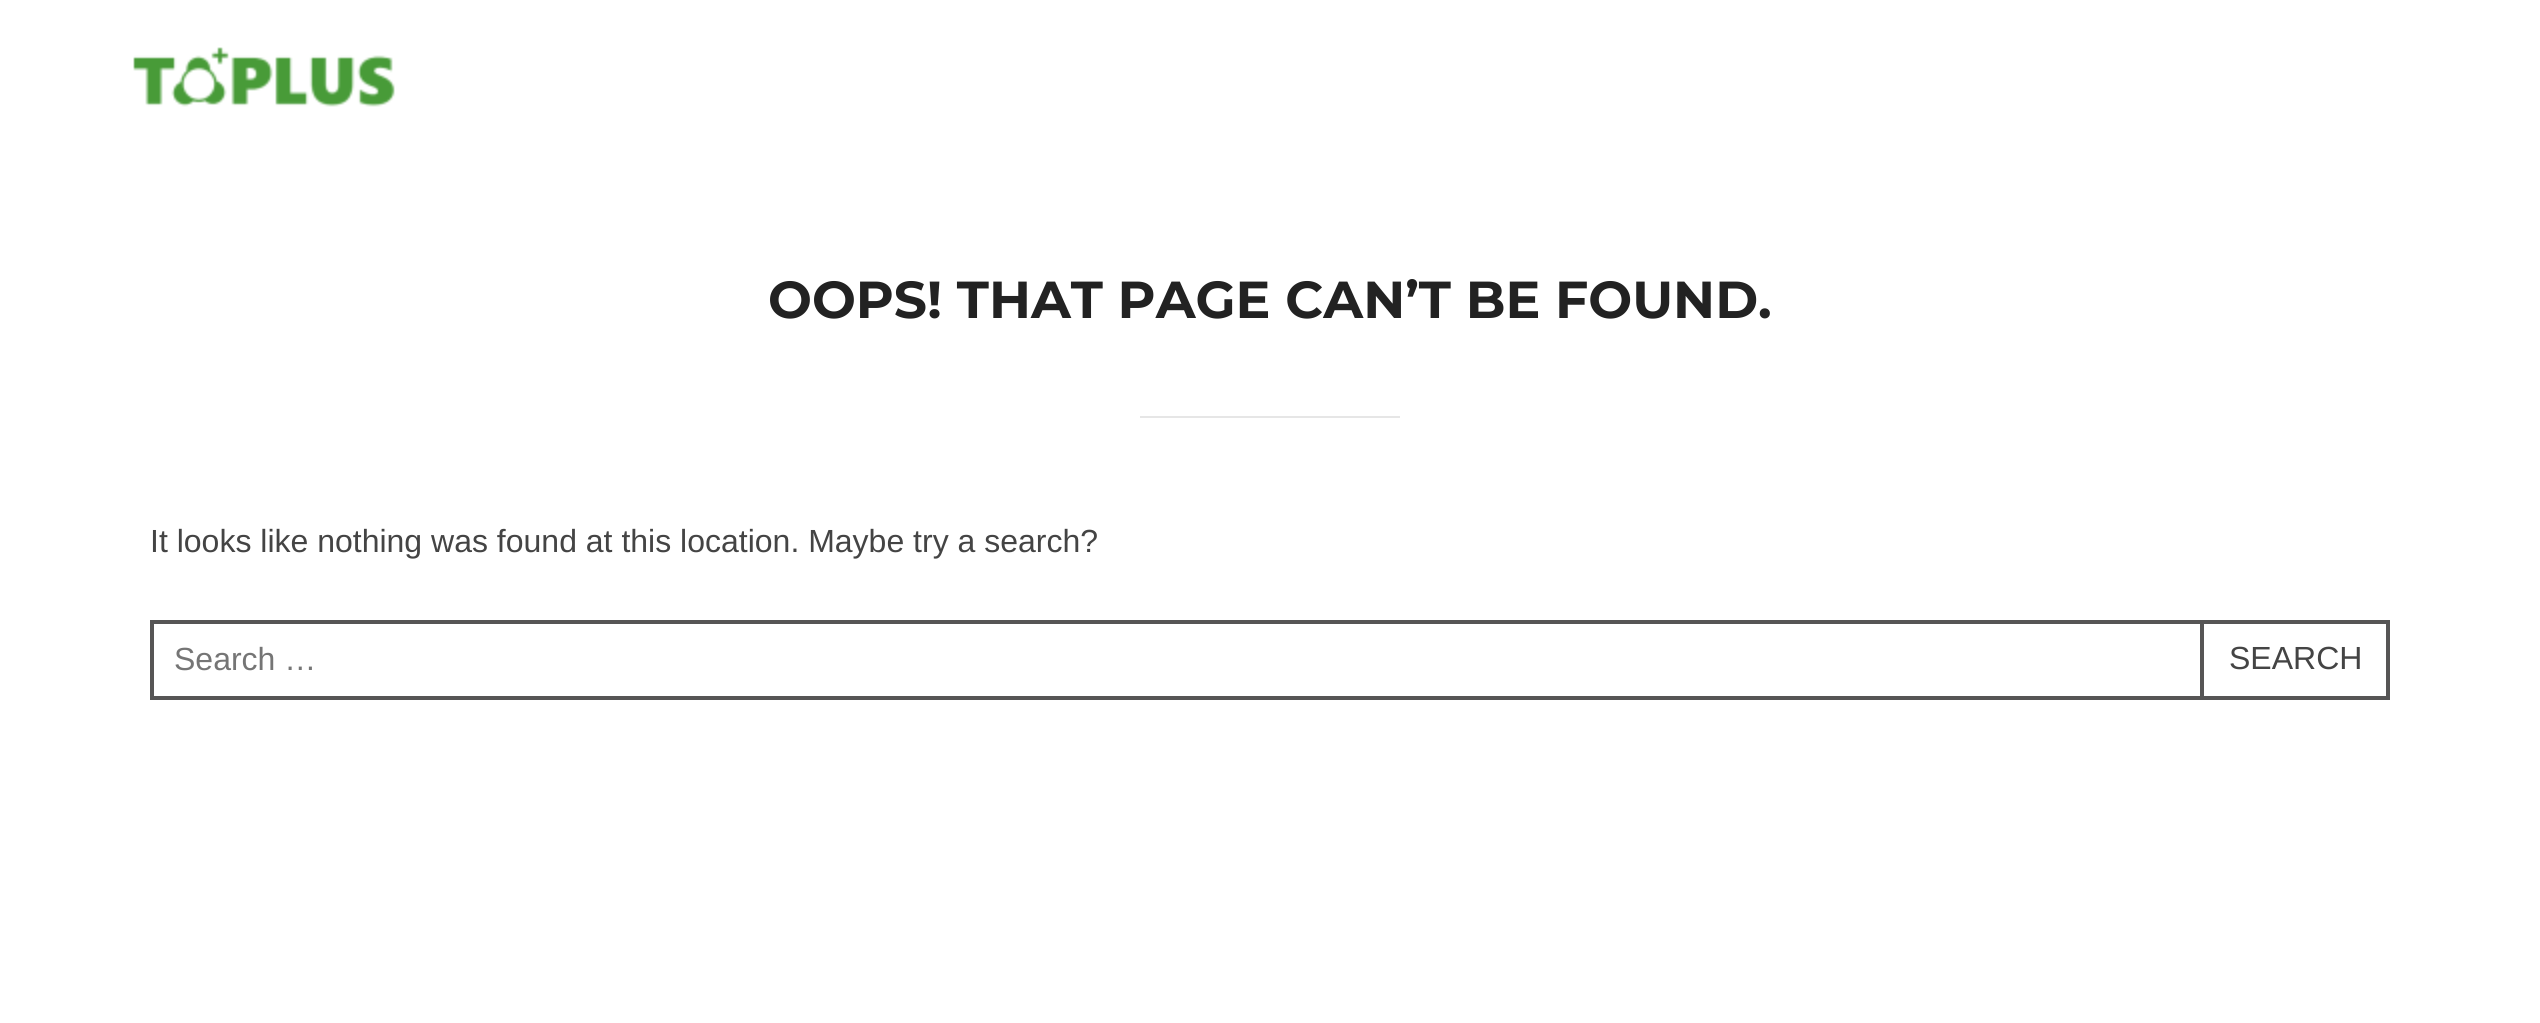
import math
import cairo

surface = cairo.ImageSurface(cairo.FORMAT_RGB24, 2540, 1023)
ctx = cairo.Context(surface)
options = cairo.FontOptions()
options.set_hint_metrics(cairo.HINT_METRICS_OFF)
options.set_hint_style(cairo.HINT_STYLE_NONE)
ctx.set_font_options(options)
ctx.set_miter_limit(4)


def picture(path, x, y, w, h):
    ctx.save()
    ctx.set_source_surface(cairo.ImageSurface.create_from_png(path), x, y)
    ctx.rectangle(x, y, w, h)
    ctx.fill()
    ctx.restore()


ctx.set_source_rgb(1, 1, 1)
ctx.paint()
picture("img1.png", 133, 47, 262, 60)
ctx.select_font_face("Montserrat", cairo.FONT_SLANT_NORMAL, cairo.FONT_WEIGHT_BOLD)
ctx.set_font_size(52)
ctx.set_source_rgb(0.133, 0.133, 0.133)
ctx.move_to(768, 318)
ctx.show_text("OOPS! THAT PAGE CAN’T BE FOUND.")
ctx.set_source_rgb(0.902, 0.902, 0.902)
ctx.rectangle(1140, 416, 260, 2)
ctx.fill()
ctx.select_font_face("Liberation Sans")
ctx.set_font_size(32)
ctx.set_source_rgb(0.267, 0.267, 0.267)
ctx.move_to(150, 552)
ctx.show_text("It looks like nothing was found at this location. Maybe try a search?")
ctx.rectangle(152, 622, 2236, 76)
ctx.set_source_rgb(0.337, 0.333, 0.333)
ctx.set_line_width(4)
ctx.stroke()
ctx.set_source_rgb(0.459, 0.459, 0.459)
ctx.move_to(174, 670)
ctx.show_text("Search …")
ctx.rectangle(2202, 622, 186, 76)
ctx.set_source_rgb(0.337, 0.333, 0.333)
ctx.stroke()
ctx.set_source_rgb(0.267, 0.267, 0.267)
ctx.move_to(2229, 669)
ctx.show_text("SEARCH")
surface.write_to_png("page.png")
